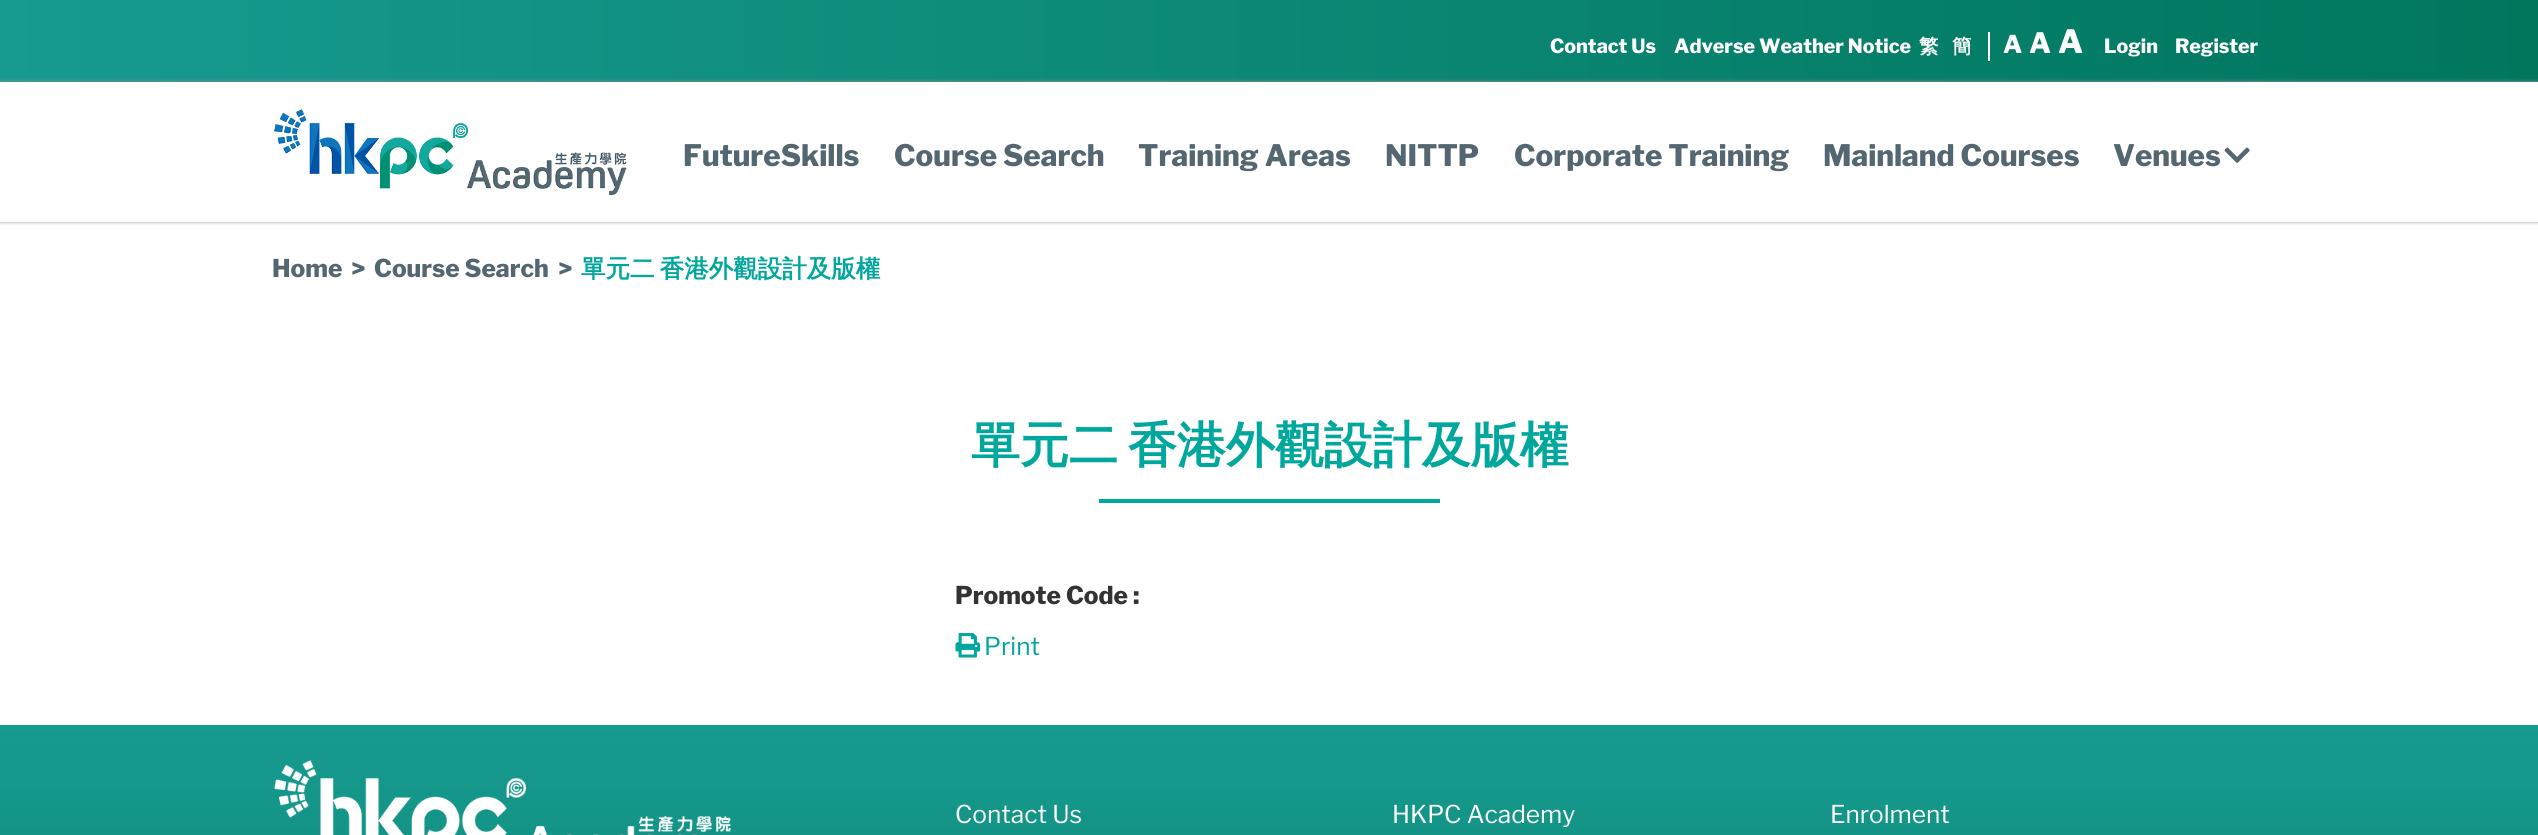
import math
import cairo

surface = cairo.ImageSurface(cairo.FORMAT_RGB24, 2538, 835)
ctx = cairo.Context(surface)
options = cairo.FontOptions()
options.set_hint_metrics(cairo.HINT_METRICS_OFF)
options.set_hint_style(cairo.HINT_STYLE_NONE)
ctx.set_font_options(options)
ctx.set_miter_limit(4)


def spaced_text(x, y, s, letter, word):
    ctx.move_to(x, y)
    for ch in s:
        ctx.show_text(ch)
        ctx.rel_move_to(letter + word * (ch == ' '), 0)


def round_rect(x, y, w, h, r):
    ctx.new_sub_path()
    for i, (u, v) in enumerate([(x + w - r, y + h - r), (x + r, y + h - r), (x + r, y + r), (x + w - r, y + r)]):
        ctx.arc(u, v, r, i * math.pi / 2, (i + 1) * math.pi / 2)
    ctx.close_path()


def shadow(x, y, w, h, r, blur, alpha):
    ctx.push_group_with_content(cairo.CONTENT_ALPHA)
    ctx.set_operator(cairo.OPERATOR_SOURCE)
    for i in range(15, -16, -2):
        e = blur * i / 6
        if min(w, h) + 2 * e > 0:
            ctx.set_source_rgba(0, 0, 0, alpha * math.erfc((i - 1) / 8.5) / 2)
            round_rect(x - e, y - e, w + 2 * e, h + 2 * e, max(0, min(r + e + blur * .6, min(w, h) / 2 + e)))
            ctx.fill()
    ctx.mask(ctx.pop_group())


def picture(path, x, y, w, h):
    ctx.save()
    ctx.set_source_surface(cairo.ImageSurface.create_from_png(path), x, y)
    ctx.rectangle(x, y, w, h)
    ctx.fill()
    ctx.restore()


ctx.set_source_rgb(1, 1, 1)
ctx.paint()
gradient = cairo.LinearGradient(0, 41, 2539, 41)
gradient.add_color_stop_rgba(0, 0.09, 0.604, 0.561, 1)
gradient.add_color_stop_rgba(1, 0, 0.463, 0.365, 1)
ctx.set_source(gradient)
ctx.rectangle(0, 0, 2538, 82)
ctx.fill()
ctx.select_font_face("Libre Franklin ExtraBold")
ctx.set_font_size(19.6)
ctx.set_source_rgb(1, 1, 1)
ctx.move_to(1550, 53)
ctx.show_text("Contact Us")
ctx.move_to(1674, 53)
ctx.show_text("Adverse Weather Notice")
ctx.select_font_face("WenQuanYi Zen Hei", cairo.FONT_SLANT_NORMAL, cairo.FONT_WEIGHT_BOLD)
ctx.move_to(1919, 53)
ctx.show_text("繁")
ctx.rectangle(1988, 32, 2, 29)
ctx.fill()
ctx.move_to(1952, 53)
ctx.show_text("簡")
ctx.select_font_face("Libre Franklin ExtraBold")
ctx.set_font_size(24.5)
ctx.move_to(2003, 53)
ctx.show_text("A")
ctx.set_font_size(28)
ctx.move_to(2029, 53)
ctx.show_text("A")
ctx.set_font_size(32)
ctx.move_to(2058, 53)
ctx.show_text("A")
ctx.set_font_size(19.6)
ctx.move_to(2104, 53)
ctx.show_text("Login")
ctx.move_to(2175, 53)
ctx.show_text("Register")
ctx.set_source_rgb(0.592, 0.592, 0.592)
shadow(0, 82, 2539, 140, 0, 2, 1)
ctx.set_source_rgb(1, 1, 1)
ctx.rectangle(0, 82, 2538, 140)
ctx.fill()
picture("img1.png", 274, 109, 353, 87)
ctx.set_font_size(29.5)
ctx.set_source_rgb(0.329, 0.4, 0.439)
ctx.move_to(683, 166)
ctx.show_text("FutureSkills")
ctx.move_to(894, 166)
ctx.show_text("Course Search")
ctx.move_to(1138, 166)
ctx.show_text("Training Areas")
ctx.move_to(1385, 166)
ctx.show_text("NITTP")
ctx.move_to(1514, 166)
ctx.show_text("Corporate Training")
ctx.move_to(1823, 166)
ctx.show_text("Mainland Courses")
ctx.move_to(2113, 166)
ctx.show_text("Venues")
picture("img2.png", 2224, 147, 26, 16)
ctx.set_font_size(24.5)
ctx.move_to(272, 277)
ctx.show_text("Home")
ctx.move_to(351, 277)
ctx.show_text(">")
ctx.move_to(374, 277)
ctx.show_text("Course Search")
ctx.move_to(558, 277)
ctx.show_text(">")
ctx.select_font_face("WenQuanYi Zen Hei", cairo.FONT_SLANT_NORMAL, cairo.FONT_WEIGHT_BOLD)
ctx.set_source_rgb(0, 0.655, 0.616)
spaced_text(581, 277, "單元二 香港外觀設計及版權", 0, -2)
ctx.set_font_size(49)
spaced_text(971, 462, "單元二 香港外觀設計及版權", 0, -5)
ctx.rectangle(1099, 499, 341, 4)
ctx.fill()
ctx.select_font_face("Libre Franklin ExtraBold")
ctx.set_font_size(24.5)
ctx.set_source_rgb(0.2, 0.2, 0.2)
ctx.move_to(955, 604)
ctx.show_text("Promote Code :")
picture("img3.png", 955, 633, 25, 25)
ctx.select_font_face("Libre Franklin")
ctx.set_source_rgb(0, 0.655, 0.616)
ctx.move_to(984, 655)
ctx.show_text("Print")
gradient = cairo.LinearGradient(1270, 724, 1270, 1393)
gradient.add_color_stop_rgba(0, 0.09, 0.604, 0.561, 1)
gradient.add_color_stop_rgba(1, 0, 0.463, 0.365, 1)
ctx.set_source(gradient)
ctx.rectangle(0, 725, 2538, 110)
ctx.fill()
picture("img4.png", 274, 760, 457, 75)
ctx.set_source_rgb(1, 1, 1)
ctx.move_to(955, 823)
ctx.show_text("Contact Us")
ctx.move_to(1392, 823)
ctx.show_text("HKPC Academy")
ctx.move_to(1830, 823)
ctx.show_text("Enrolment")
surface.write_to_png("page.png")
